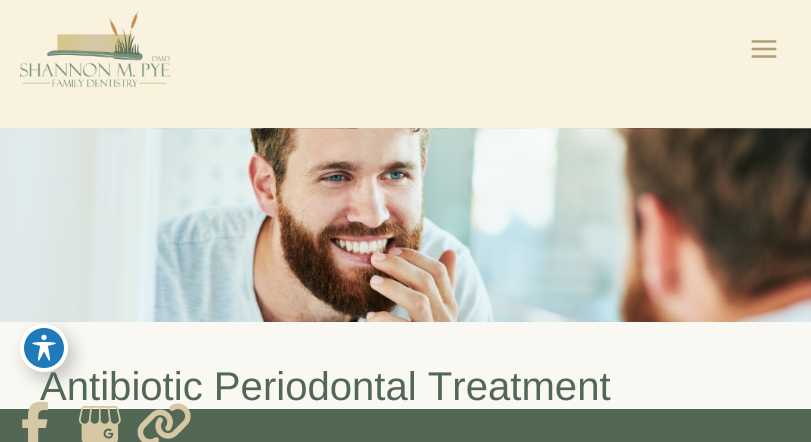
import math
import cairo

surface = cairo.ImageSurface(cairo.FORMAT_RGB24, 811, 442)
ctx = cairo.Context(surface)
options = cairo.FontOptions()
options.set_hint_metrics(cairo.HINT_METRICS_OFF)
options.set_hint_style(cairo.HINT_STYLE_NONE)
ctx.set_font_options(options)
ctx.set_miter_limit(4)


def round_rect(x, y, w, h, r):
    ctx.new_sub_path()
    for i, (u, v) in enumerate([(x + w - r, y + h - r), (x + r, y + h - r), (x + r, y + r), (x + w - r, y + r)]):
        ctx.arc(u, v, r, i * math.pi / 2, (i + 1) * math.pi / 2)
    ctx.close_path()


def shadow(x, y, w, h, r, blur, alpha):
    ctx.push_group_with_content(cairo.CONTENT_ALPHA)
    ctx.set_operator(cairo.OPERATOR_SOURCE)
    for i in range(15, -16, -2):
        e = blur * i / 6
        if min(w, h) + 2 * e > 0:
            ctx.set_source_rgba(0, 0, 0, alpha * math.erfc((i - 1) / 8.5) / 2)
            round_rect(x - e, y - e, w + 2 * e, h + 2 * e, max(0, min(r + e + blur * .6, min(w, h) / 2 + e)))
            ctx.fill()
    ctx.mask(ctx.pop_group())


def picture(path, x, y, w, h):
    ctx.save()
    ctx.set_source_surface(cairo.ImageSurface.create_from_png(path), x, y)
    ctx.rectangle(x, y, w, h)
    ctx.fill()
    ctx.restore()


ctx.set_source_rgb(0.973, 0.969, 0.953)
ctx.paint()
picture("img4.png", 0, 128, 811, 194)
ctx.set_source_rgb(0.322, 0.408, 0.329)
ctx.rectangle(0, 409, 811, 33)
ctx.fill()
picture("img5.png", 22, 401, 26, 41)
ctx.set_source_rgb(0, 0, 0)
shadow(26, 332, 48, 48, 24, 8, 0.2)
ctx.select_font_face("Liberation Sans")
ctx.set_font_size(40.1)
ctx.set_source_rgb(0.322, 0.408, 0.329)
ctx.move_to(40, 400)
ctx.show_text("Antibiotic Periodontal Treatment")
ctx.set_source_rgb(0.118, 0.478, 0.725)
ctx.new_path()
ctx.arc(44, 348, 22, 0, 2 * math.pi)
ctx.fill_preserve()
ctx.set_source_rgb(1, 1, 1)
ctx.set_line_width(4)
ctx.stroke()
picture("img1.png", 32, 334, 24, 27)
ctx.set_source_rgb(0.973, 0.949, 0.875)
ctx.rectangle(0, 0, 811, 128)
ctx.fill()
picture("img2.png", 20, 11, 150, 76)
picture("img3.png", 751, 40, 26, 18)
picture("img6.png", 78, 406, 43, 36)
picture("img7.png", 137, 403, 54, 39)
surface.write_to_png("page.png")
